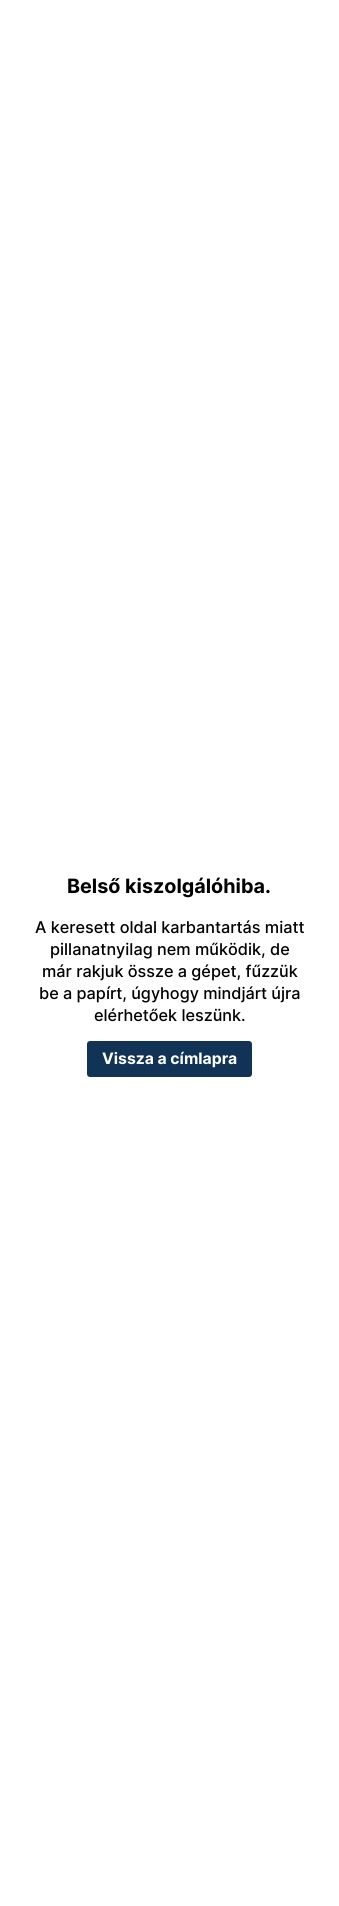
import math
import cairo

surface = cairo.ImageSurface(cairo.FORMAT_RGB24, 339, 1906)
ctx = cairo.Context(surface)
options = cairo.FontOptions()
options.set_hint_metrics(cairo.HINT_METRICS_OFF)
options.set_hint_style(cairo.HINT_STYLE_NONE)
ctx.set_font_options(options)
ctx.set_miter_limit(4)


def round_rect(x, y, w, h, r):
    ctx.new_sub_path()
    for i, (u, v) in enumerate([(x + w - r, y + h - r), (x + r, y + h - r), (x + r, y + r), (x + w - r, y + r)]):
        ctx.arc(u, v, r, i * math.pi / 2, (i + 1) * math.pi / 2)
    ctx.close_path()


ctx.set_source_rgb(1, 1, 1)
ctx.paint()
ctx.select_font_face("Inter", cairo.FONT_SLANT_NORMAL, cairo.FONT_WEIGHT_BOLD)
ctx.set_font_size(19.75)
ctx.set_source_rgb(0, 0, 0)
ctx.move_to(67, 893)
ctx.show_text("Belső kiszolgálóhiba.")
ctx.select_font_face("Inter Medium")
ctx.set_font_size(16.25)
ctx.move_to(35, 933)
ctx.show_text("A keresett oldal karbantartás miatt")
ctx.move_to(50, 955)
ctx.show_text("pillanatnyilag nem működik, de")
ctx.move_to(42, 977)
ctx.show_text("már rakjuk össze a gépet, fűzzük")
ctx.move_to(39, 999)
ctx.show_text("be a papírt, úgyhogy mindjárt újra")
ctx.move_to(94, 1021)
ctx.show_text("elérhetőek leszünk.")
ctx.set_source_rgb(0.067, 0.2, 0.333)
round_rect(87, 1041, 165, 36, 3)
ctx.fill()
ctx.select_font_face("Inter", cairo.FONT_SLANT_NORMAL, cairo.FONT_WEIGHT_BOLD)
ctx.set_font_size(15.75)
ctx.set_source_rgb(1, 1, 1)
ctx.move_to(102, 1064)
ctx.show_text("Vissza a címlapra")
surface.write_to_png("page.png")
